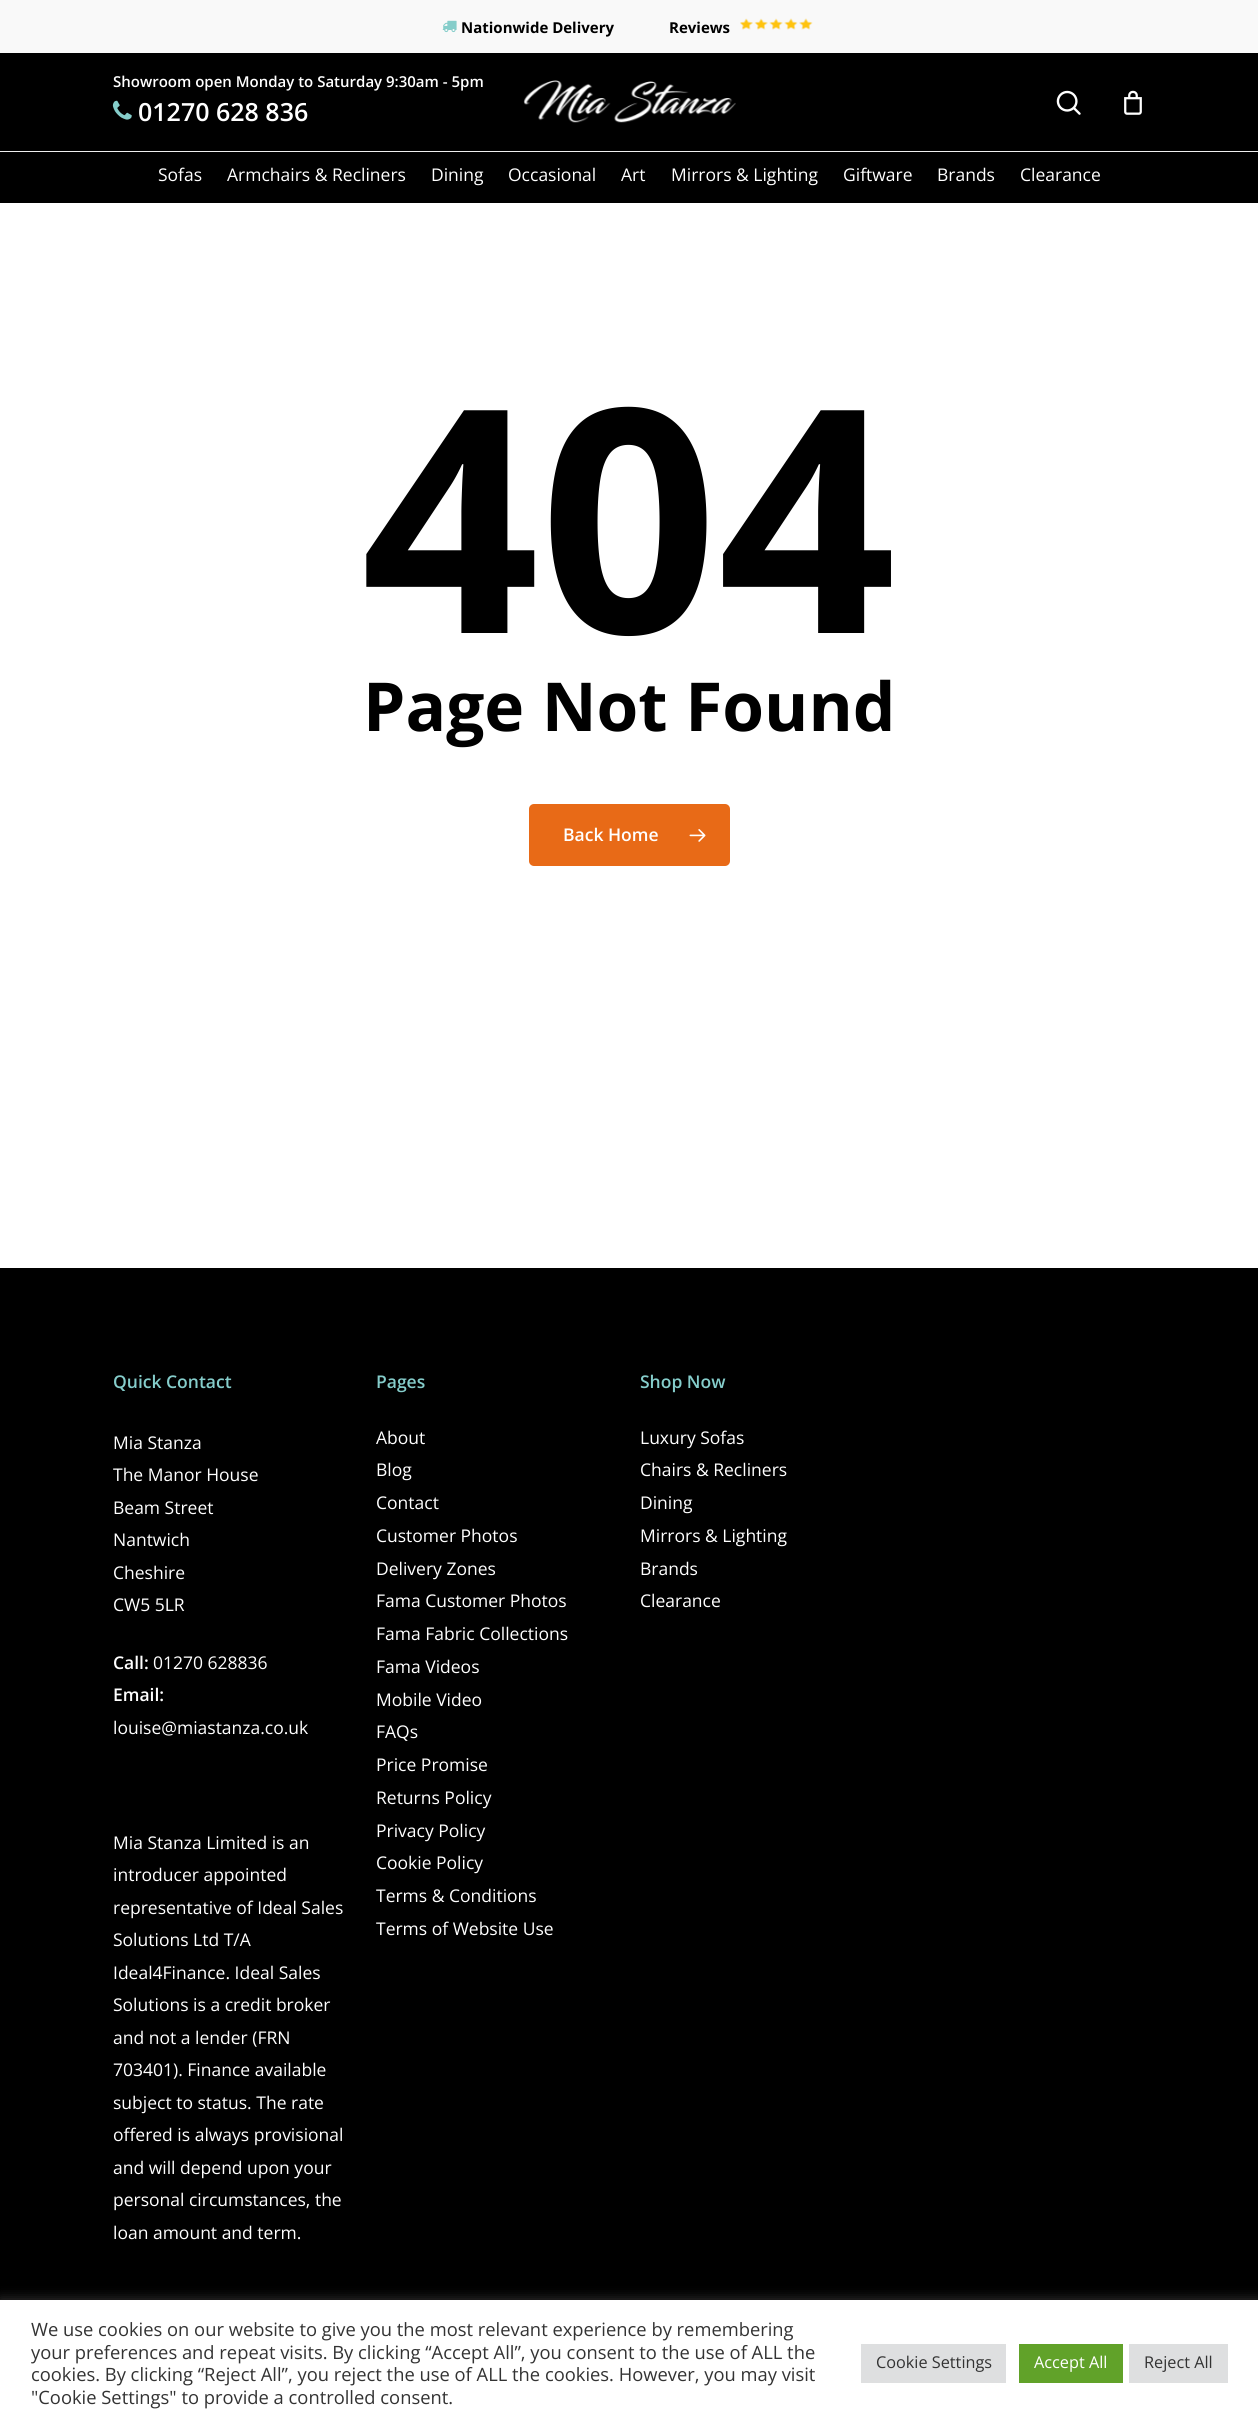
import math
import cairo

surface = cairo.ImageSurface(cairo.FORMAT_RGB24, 1258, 2425)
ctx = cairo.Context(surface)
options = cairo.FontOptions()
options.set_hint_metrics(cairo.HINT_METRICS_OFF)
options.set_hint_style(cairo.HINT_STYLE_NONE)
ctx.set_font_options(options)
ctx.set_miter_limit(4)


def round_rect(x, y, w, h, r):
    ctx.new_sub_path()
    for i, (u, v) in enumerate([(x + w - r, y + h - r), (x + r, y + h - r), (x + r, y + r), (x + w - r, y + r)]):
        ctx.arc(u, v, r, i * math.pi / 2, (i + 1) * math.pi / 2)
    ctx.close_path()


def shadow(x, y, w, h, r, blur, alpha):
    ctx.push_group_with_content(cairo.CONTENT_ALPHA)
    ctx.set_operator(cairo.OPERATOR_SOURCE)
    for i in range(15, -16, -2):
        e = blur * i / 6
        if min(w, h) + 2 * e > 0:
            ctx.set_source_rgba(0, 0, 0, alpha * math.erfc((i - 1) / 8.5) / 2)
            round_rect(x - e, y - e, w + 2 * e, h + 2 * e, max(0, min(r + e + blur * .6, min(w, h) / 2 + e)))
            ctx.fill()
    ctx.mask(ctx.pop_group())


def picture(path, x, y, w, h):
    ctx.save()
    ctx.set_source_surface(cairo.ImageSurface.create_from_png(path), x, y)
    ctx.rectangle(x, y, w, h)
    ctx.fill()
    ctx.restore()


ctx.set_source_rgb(1, 1, 1)
ctx.paint()
ctx.set_source_rgb(0.973, 0.973, 0.973)
ctx.rectangle(0, 0, 1258, 53)
ctx.fill()
picture("img1.png", 442, 20, 15, 13)
ctx.select_font_face("Open Sans", cairo.FONT_SLANT_NORMAL, cairo.FONT_WEIGHT_BOLD)
ctx.set_font_size(15)
ctx.set_source_rgb(0, 0, 0)
ctx.move_to(461, 33)
ctx.show_text("Nationwide Delivery")
ctx.move_to(669, 33)
ctx.show_text("Reviews")
picture("img2.png", 740, 18, 73, 12)
ctx.rectangle(0, 53, 1258, 150)
ctx.fill()
ctx.select_font_face("Open Sans SemiBold")
ctx.set_source_rgb(1, 1, 1)
ctx.move_to(113, 87)
ctx.show_text("Showroom open Monday to Saturday 9:30am - 5pm")
picture("img3.png", 112, 100, 20, 20)
ctx.set_font_size(25)
ctx.move_to(138, 121)
ctx.show_text("01270 628 836")
picture("img4.png", 523, 80, 213, 43)
picture("img5.png", 1056, 90, 25, 25)
picture("img6.png", 1124, 90, 18, 25)
ctx.set_source_rgb(0.933, 0.933, 0.933)
ctx.rectangle(0, 151, 1258, 1)
ctx.fill()
ctx.select_font_face("Open Sans")
ctx.set_font_size(17.5)
ctx.set_source_rgb(1, 1, 1)
ctx.move_to(158, 181)
ctx.show_text("Sofas")
ctx.move_to(227, 181)
ctx.show_text("Armchairs & Recliners")
ctx.move_to(431, 181)
ctx.show_text("Dining")
ctx.move_to(508, 181)
ctx.show_text("Occasional")
ctx.move_to(621, 181)
ctx.show_text("Art")
ctx.move_to(671, 181)
ctx.show_text("Mirrors & Lighting")
ctx.move_to(843, 181)
ctx.show_text("Giftware")
ctx.move_to(937, 181)
ctx.show_text("Brands")
ctx.move_to(1020, 181)
ctx.show_text("Clearance")
ctx.select_font_face("Open Sans", cairo.FONT_SLANT_NORMAL, cairo.FONT_WEIGHT_BOLD)
ctx.set_font_size(312)
ctx.set_source_rgb(0, 0, 0)
ctx.move_to(361, 633)
ctx.show_text("404")
ctx.set_font_size(67.5)
ctx.move_to(363, 731)
ctx.show_text("Page Not Found")
ctx.set_source_rgb(0.91, 0.416, 0.09)
round_rect(529, 804, 201, 62, 5)
ctx.fill()
ctx.select_font_face("Open Sans SemiBold")
ctx.set_font_size(17.5)
ctx.set_source_rgb(1, 1, 1)
ctx.move_to(563, 841)
ctx.show_text("Back Home")
picture("img7.png", 689, 829, 17, 13)
ctx.set_source_rgb(0, 0, 0)
ctx.rectangle(0, 1268, 1258, 1032)
ctx.fill()
ctx.set_source_rgb(0.522, 0.804, 0.796)
ctx.move_to(113, 1388)
ctx.show_text("Quick Contact")
ctx.select_font_face("Open Sans")
ctx.set_source_rgb(1, 1, 1)
ctx.move_to(113, 1449)
ctx.show_text("Mia Stanza")
ctx.move_to(113, 1481)
ctx.show_text("The Manor House")
ctx.move_to(113, 1514)
ctx.show_text("Beam Street")
ctx.move_to(113, 1546)
ctx.show_text("Nantwich")
ctx.move_to(113, 1579)
ctx.show_text("Cheshire")
ctx.move_to(113, 1611)
ctx.show_text("CW5 5LR")
ctx.select_font_face("Open Sans SemiBold")
ctx.move_to(113, 1669)
ctx.show_text("Call:")
ctx.select_font_face("Open Sans")
ctx.move_to(153, 1669)
ctx.show_text("01270 628836")
ctx.select_font_face("Open Sans SemiBold")
ctx.move_to(113, 1701)
ctx.show_text("Email:")
ctx.select_font_face("Open Sans")
ctx.move_to(113, 1734)
ctx.show_text("louise@miastanza.co.uk")
ctx.move_to(113, 1849)
ctx.show_text("Mia Stanza Limited is an")
ctx.move_to(113, 1881)
ctx.show_text("introducer appointed")
ctx.move_to(113, 1914)
ctx.show_text("representative of Ideal Sales")
ctx.move_to(113, 1946)
ctx.show_text("Solutions Ltd T/A")
ctx.move_to(113, 1979)
ctx.show_text("Ideal4Finance. Ideal Sales")
ctx.move_to(113, 2011)
ctx.show_text("Solutions is a credit broker")
ctx.move_to(113, 2044)
ctx.show_text("and not a lender (FRN")
ctx.move_to(113, 2076)
ctx.show_text("703401). Finance available")
ctx.move_to(113, 2109)
ctx.show_text("subject to status. The rate")
ctx.move_to(113, 2141)
ctx.show_text("offered is always provisional")
ctx.move_to(113, 2174)
ctx.show_text("and will depend upon your")
ctx.move_to(113, 2206)
ctx.show_text("personal circumstances, the")
ctx.move_to(113, 2239)
ctx.show_text("loan amount and term.")
ctx.select_font_face("Open Sans SemiBold")
ctx.set_source_rgb(0.522, 0.804, 0.796)
ctx.move_to(376, 1388)
ctx.show_text("Pages")
ctx.select_font_face("Open Sans")
ctx.set_source_rgb(1, 1, 1)
ctx.move_to(376, 1444)
ctx.show_text("About")
ctx.move_to(376, 1476)
ctx.show_text("Blog")
ctx.move_to(376, 1509)
ctx.show_text("Contact")
ctx.move_to(376, 1542)
ctx.show_text("Customer Photos")
ctx.move_to(376, 1575)
ctx.show_text("Delivery Zones")
ctx.move_to(376, 1607)
ctx.show_text("Fama Customer Photos")
ctx.move_to(376, 1640)
ctx.show_text("Fama Fabric Collections")
ctx.move_to(376, 1673)
ctx.show_text("Fama Videos")
ctx.move_to(376, 1706)
ctx.show_text("Mobile Video")
ctx.move_to(376, 1738)
ctx.show_text("FAQs")
ctx.move_to(376, 1771)
ctx.show_text("Price Promise")
ctx.move_to(376, 1804)
ctx.show_text("Returns Policy")
ctx.move_to(376, 1837)
ctx.show_text("Privacy Policy")
ctx.move_to(376, 1869)
ctx.show_text("Cookie Policy")
ctx.move_to(376, 1902)
ctx.show_text("Terms & Conditions")
ctx.move_to(376, 1935)
ctx.show_text("Terms of Website Use")
ctx.select_font_face("Open Sans SemiBold")
ctx.set_source_rgb(0.522, 0.804, 0.796)
ctx.move_to(640, 1388)
ctx.show_text("Shop Now")
ctx.select_font_face("Open Sans")
ctx.set_source_rgb(1, 1, 1)
ctx.move_to(640, 1444)
ctx.show_text("Luxury Sofas")
ctx.move_to(640, 1476)
ctx.show_text("Chairs & Recliners")
ctx.move_to(640, 1509)
ctx.show_text("Dining")
ctx.move_to(640, 1542)
ctx.show_text("Mirrors & Lighting")
ctx.move_to(640, 1575)
ctx.show_text("Brands")
ctx.move_to(640, 1607)
ctx.show_text("Clearance")
ctx.set_source_rgb(0.675, 0.671, 0.671)
shadow(0, 2299, 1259, 125, 0, 6, 0.3)
ctx.set_source_rgb(1, 1, 1)
ctx.rectangle(0, 2300, 1258, 125)
ctx.fill()
ctx.set_font_size(18.35)
ctx.set_source_rgb(0.2, 0.2, 0.2)
ctx.move_to(31, 2336)
ctx.show_text("We use cookies on our website to give you the most relevant experience by remembering")
ctx.move_to(31, 2359)
ctx.show_text("your preferences and repeat visits. By clicking “Accept All”, you consent to the use of ALL the")
ctx.move_to(31, 2381)
ctx.show_text("cookies. By clicking “Reject All”, you reject the use of ALL the cookies. However, you may visit")
ctx.move_to(31, 2404)
ctx.show_text("\"Cookie Settings\" to provide a controlled consent.")
ctx.set_source_rgb(0.871, 0.875, 0.878)
ctx.rectangle(861, 2344, 145, 39)
ctx.fill()
ctx.set_font_size(16.25)
ctx.set_source_rgb(0.2, 0.2, 0.2)
ctx.move_to(876, 2368)
ctx.show_text("Cookie Settings")
ctx.set_source_rgb(0.38, 0.635, 0.161)
ctx.rectangle(1019, 2344, 104, 39)
ctx.fill()
ctx.set_source_rgb(1, 1, 1)
ctx.move_to(1034, 2368)
ctx.show_text("Accept All")
ctx.set_source_rgb(0.871, 0.875, 0.878)
ctx.rectangle(1129, 2344, 99, 39)
ctx.fill()
ctx.set_source_rgb(0.2, 0.2, 0.2)
ctx.move_to(1144, 2368)
ctx.show_text("Reject All")
surface.write_to_png("page.png")
